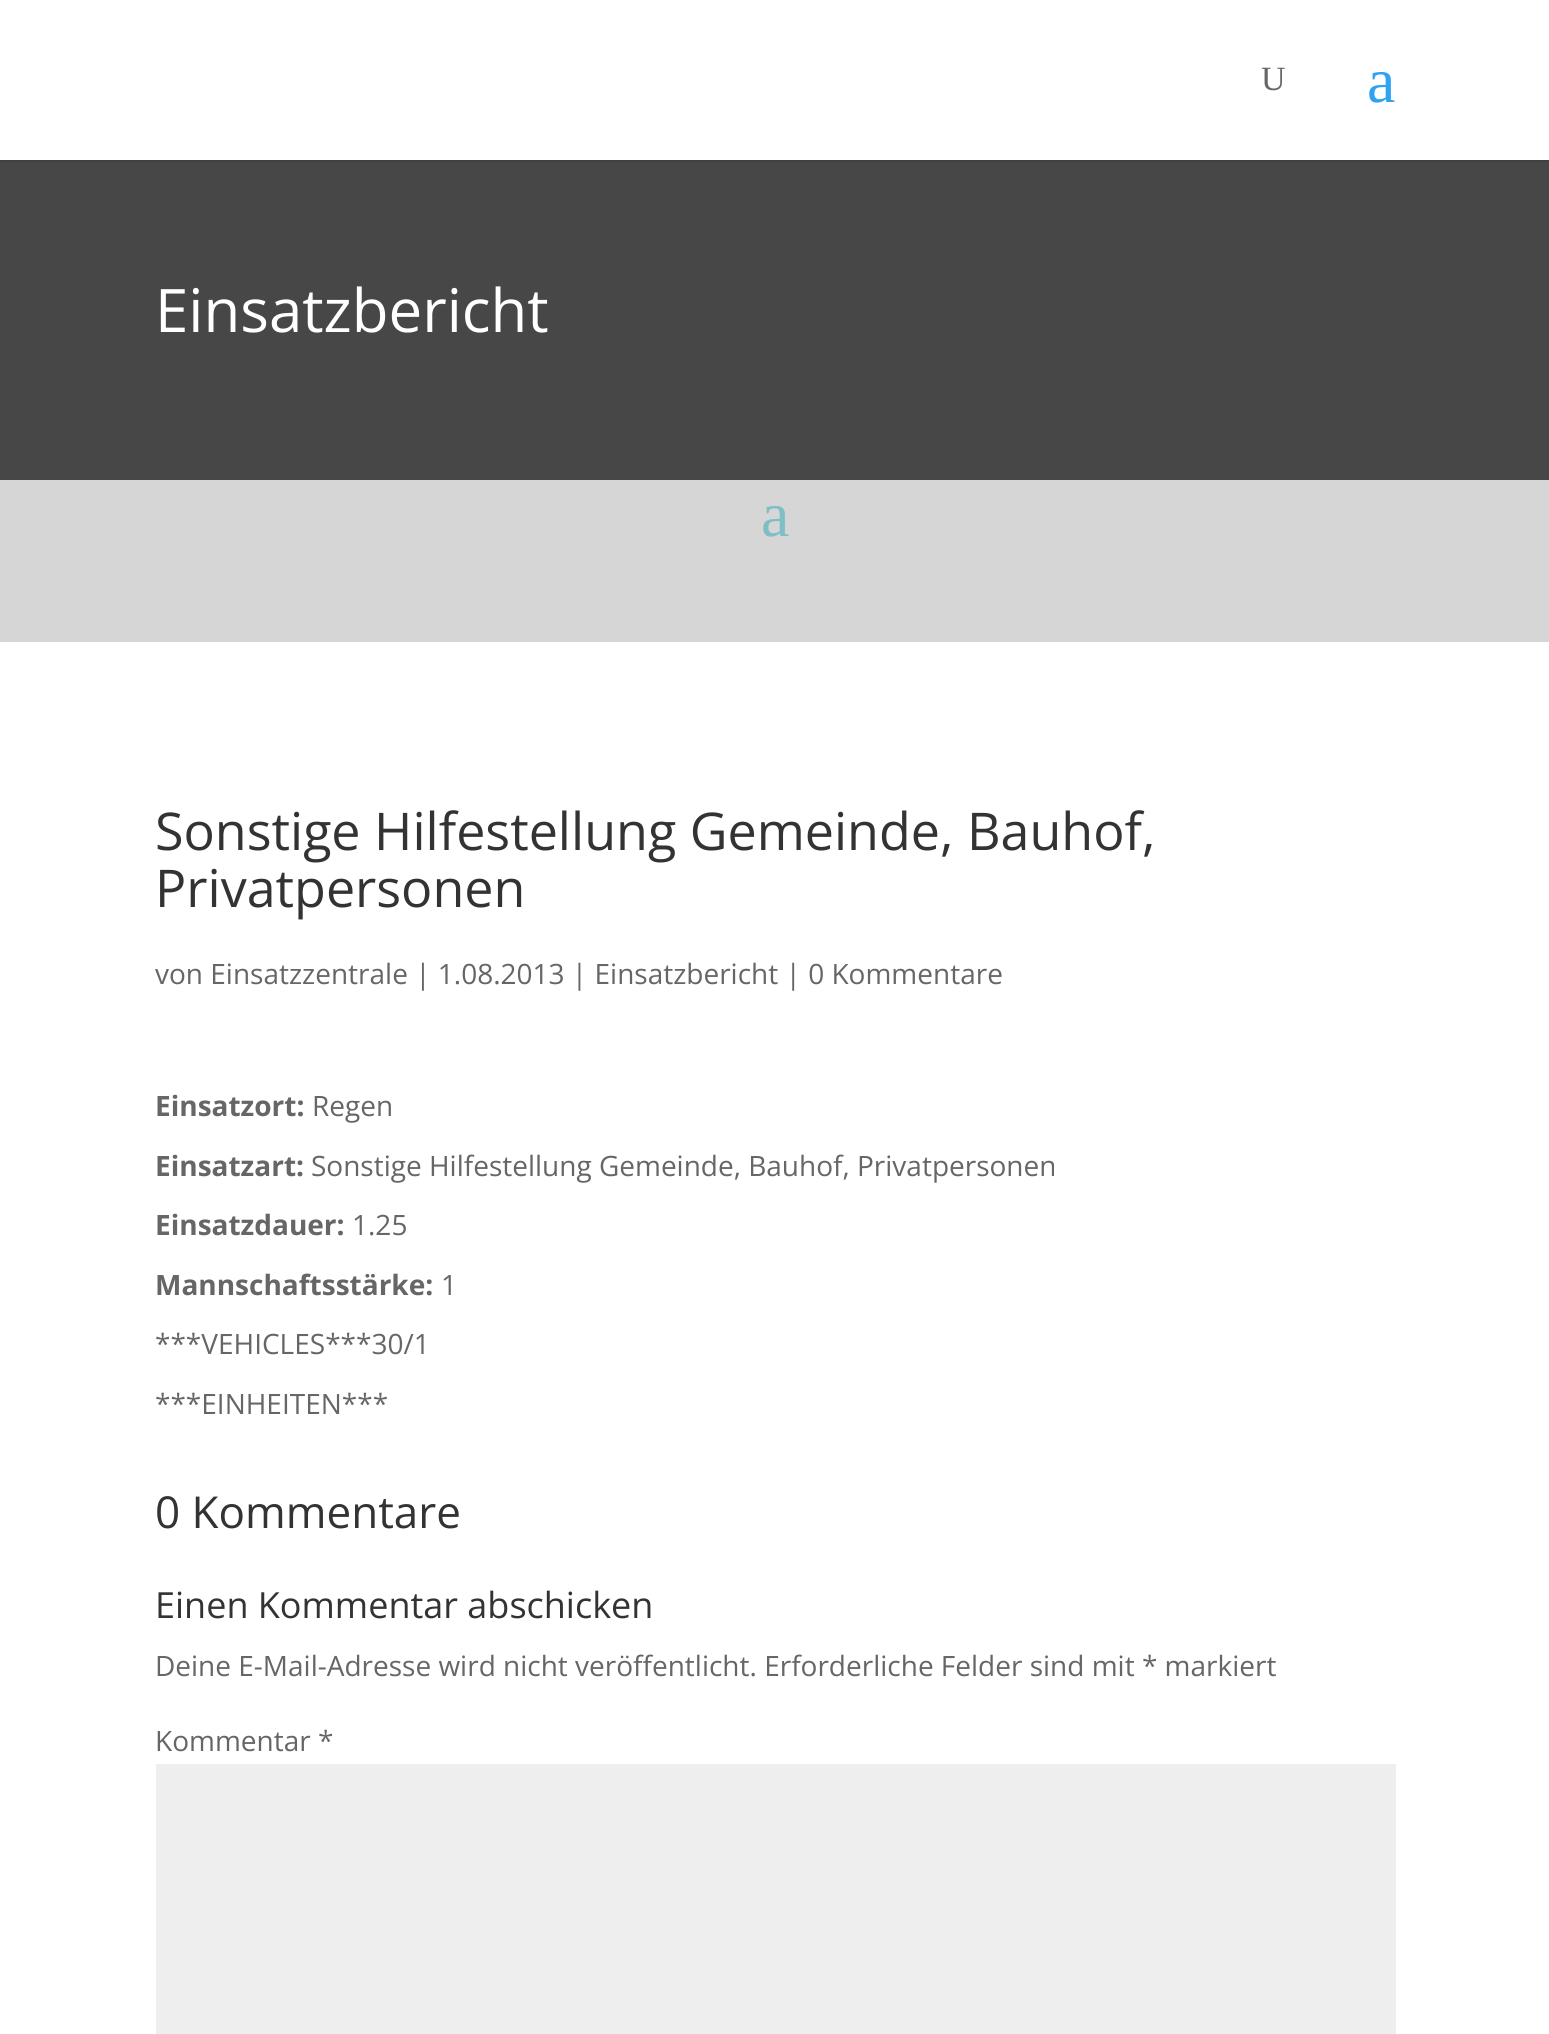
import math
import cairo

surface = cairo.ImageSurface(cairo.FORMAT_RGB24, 1549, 2034)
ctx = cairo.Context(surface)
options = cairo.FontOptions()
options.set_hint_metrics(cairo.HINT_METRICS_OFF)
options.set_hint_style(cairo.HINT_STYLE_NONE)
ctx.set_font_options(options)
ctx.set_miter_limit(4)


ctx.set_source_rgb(1, 1, 1)
ctx.paint()
ctx.set_source_rgb(0.251, 0.251, 0.251)
ctx.rectangle(0, 160, 1549, 2)
ctx.fill()
ctx.select_font_face("Liberation Serif")
ctx.set_font_size(34)
ctx.set_source_rgb(0.4, 0.4, 0.4)
ctx.move_to(1261, 90)
ctx.show_text("U")
ctx.set_font_size(64)
ctx.set_source_rgb(0.18, 0.639, 0.949)
ctx.move_to(1367, 102)
ctx.show_text("a")
ctx.set_source_rgb(0.278, 0.278, 0.278)
ctx.rectangle(0, 162, 1549, 318)
ctx.fill()
ctx.select_font_face("Open Sans")
ctx.set_font_size(60)
ctx.set_source_rgb(1, 1, 1)
ctx.move_to(155, 332)
ctx.show_text("Einsatzbericht")
ctx.set_source_rgb(0.839, 0.839, 0.839)
ctx.rectangle(0, 480, 1549, 162)
ctx.fill()
ctx.select_font_face("Liberation Serif")
ctx.set_font_size(64)
ctx.set_source_rgb(0.494, 0.745, 0.773)
ctx.move_to(761, 536)
ctx.show_text("a")
ctx.select_font_face("Open Sans")
ctx.set_font_size(52)
ctx.set_source_rgb(0.2, 0.2, 0.2)
ctx.move_to(155, 850)
ctx.show_text("Sonstige Hilfestellung Gemeinde, Bauhof,")
ctx.move_to(155, 907)
ctx.show_text("Privatpersonen")
ctx.set_font_size(28)
ctx.set_source_rgb(0.4, 0.4, 0.4)
ctx.move_to(155, 984)
ctx.show_text("von Einsatzzentrale | 1.08.2013 | Einsatzbericht | 0 Kommentare")
ctx.select_font_face("Open Sans", cairo.FONT_SLANT_NORMAL, cairo.FONT_WEIGHT_BOLD)
ctx.move_to(155, 1116)
ctx.show_text("Einsatzort:")
ctx.select_font_face("Open Sans")
ctx.move_to(312, 1116)
ctx.show_text("Regen")
ctx.select_font_face("Open Sans", cairo.FONT_SLANT_NORMAL, cairo.FONT_WEIGHT_BOLD)
ctx.move_to(155, 1176)
ctx.show_text("Einsatzart:")
ctx.select_font_face("Open Sans")
ctx.move_to(311, 1176)
ctx.show_text("Sonstige Hilfestellung Gemeinde, Bauhof, Privatpersonen")
ctx.select_font_face("Open Sans", cairo.FONT_SLANT_NORMAL, cairo.FONT_WEIGHT_BOLD)
ctx.move_to(155, 1235)
ctx.show_text("Einsatzdauer:")
ctx.select_font_face("Open Sans")
ctx.move_to(352, 1235)
ctx.show_text("1.25")
ctx.select_font_face("Open Sans", cairo.FONT_SLANT_NORMAL, cairo.FONT_WEIGHT_BOLD)
ctx.move_to(155, 1295)
ctx.show_text("Mannschaftsstärke:")
ctx.select_font_face("Open Sans")
ctx.move_to(441, 1295)
ctx.show_text("1")
ctx.move_to(155, 1354)
ctx.show_text("***VEHICLES***30/1")
ctx.move_to(155, 1414)
ctx.show_text("***EINHEITEN***")
ctx.set_font_size(44)
ctx.set_source_rgb(0.2, 0.2, 0.2)
ctx.move_to(155, 1528)
ctx.show_text("0 Kommentare")
ctx.set_font_size(36)
ctx.move_to(155, 1618)
ctx.show_text("Einen Kommentar abschicken")
ctx.set_font_size(28)
ctx.set_source_rgb(0.4, 0.4, 0.4)
ctx.move_to(155, 1676)
ctx.show_text("Deine E-Mail-Adresse wird nicht veröffentlicht. Erforderliche Felder sind mit * markiert")
ctx.move_to(155, 1751)
ctx.show_text("Kommentar *")
ctx.set_source_rgb(0.933, 0.933, 0.933)
ctx.rectangle(156, 1764, 1240, 270)
ctx.fill()
surface.write_to_png("page.png")
